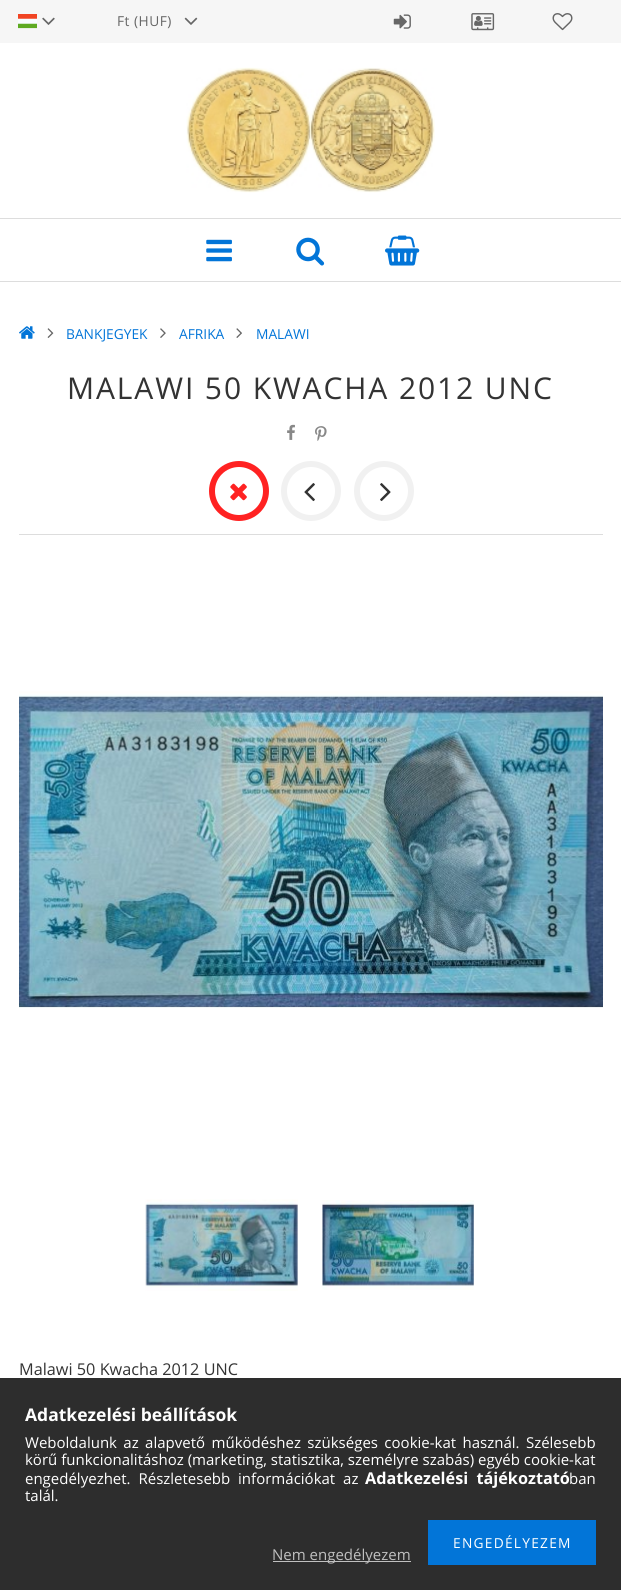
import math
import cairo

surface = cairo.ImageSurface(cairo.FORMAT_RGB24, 621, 1590)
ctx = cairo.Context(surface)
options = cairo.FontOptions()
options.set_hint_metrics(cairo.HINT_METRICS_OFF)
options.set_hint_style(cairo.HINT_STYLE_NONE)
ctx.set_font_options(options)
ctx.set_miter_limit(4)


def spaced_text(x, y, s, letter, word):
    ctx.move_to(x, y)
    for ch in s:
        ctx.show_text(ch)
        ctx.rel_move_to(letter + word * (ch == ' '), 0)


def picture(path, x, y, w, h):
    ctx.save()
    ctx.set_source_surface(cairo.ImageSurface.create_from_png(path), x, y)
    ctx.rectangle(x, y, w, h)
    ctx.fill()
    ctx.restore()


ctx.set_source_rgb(1, 1, 1)
ctx.paint()
ctx.set_source_rgb(0.176, 0.176, 0.176)
ctx.rectangle(0, 1378, 621, 212)
ctx.fill()
ctx.set_source_rgb(0.961, 0.961, 0.961)
ctx.rectangle(0, 0, 621, 43)
ctx.fill()
picture("img1.png", 18, 14, 19, 15)
picture("img2.png", 42, 17, 13, 8)
ctx.select_font_face("Open Sans")
ctx.set_font_size(13.75)
ctx.set_source_rgb(0.4, 0.4, 0.4)
spaced_text(117, 26, "Ft (HUF)", 0.5, 0)
picture("img3.png", 184, 17, 14, 8)
picture("img4.png", 393, 14, 18, 15)
picture("img5.png", 471, 13, 24, 18)
picture("img6.png", 552, 13, 21, 18)
picture("img7.png", 186, 67, 249, 126)
ctx.set_source_rgb(0.867, 0.867, 0.867)
ctx.rectangle(0, 218, 621, 1)
ctx.fill()
ctx.rectangle(0, 281, 621, 1)
ctx.fill()
picture("img8.png", 206, 239, 26, 23)
picture("img9.png", 296, 237, 29, 29)
picture("img10.png", 385, 235, 35, 31)
picture("img11.png", 19, 326, 16, 13)
picture("img12.png", 47, 328, 7, 10)
ctx.set_source_rgb(0.008, 0.459, 0.847)
ctx.move_to(66, 339)
ctx.show_text("BANKJEGYEK")
picture("img13.png", 160, 328, 6, 10)
ctx.move_to(179, 339)
ctx.show_text("AFRIKA")
picture("img14.png", 236, 328, 6, 10)
ctx.move_to(256, 339)
ctx.show_text("MALAWI")
ctx.set_source_rgb(0.867, 0.867, 0.867)
ctx.rectangle(19, 534, 584, 1)
ctx.fill()
ctx.set_font_size(30)
ctx.set_source_rgb(0.2, 0.2, 0.2)
spaced_text(67, 399, "MALAWI 50 KWACHA 2012 UNC", 1.9, 0)
picture("img15.png", 287, 424, 8, 16)
picture("img16.png", 315, 426, 12, 15)
ctx.arc(239, 491, 27, 0, 2 * math.pi)
ctx.set_source_rgb(1, 0.133, 0.133)
ctx.set_line_width(6)
ctx.stroke()
picture("img17.png", 230, 483, 17, 18)
ctx.arc(311, 491, 27, 0, 2 * math.pi)
ctx.set_source_rgb(0.945, 0.945, 0.945)
ctx.stroke()
picture("img18.png", 304, 483, 11, 19)
ctx.arc(384, 491, 27, 0, 2 * math.pi)
ctx.stroke()
picture("img19.png", 380, 483, 11, 19)
picture("img20.png", 19, 691, 584, 317)
picture("img21.png", 145, 1199, 153, 92)
picture("img22.png", 322, 1200, 152, 90)
ctx.set_font_size(16.25)
ctx.set_source_rgb(0.2, 0.2, 0.2)
ctx.move_to(19, 1375)
ctx.show_text("Malawi 50 Kwacha 2012 UNC")
ctx.select_font_face("Open Sans", cairo.FONT_SLANT_NORMAL, cairo.FONT_WEIGHT_BOLD)
ctx.set_font_size(17.5)
ctx.set_source_rgb(1, 1, 1)
ctx.move_to(25, 1421)
ctx.show_text("Adatkezelési beállítások")
ctx.select_font_face("Open Sans")
ctx.set_font_size(15)
spaced_text(25, 1448, "Weboldalunk az alapvető működéshez szükséges cookie-kat használ. Szélesebb", 0, 2.5)
ctx.move_to(25, 1465)
ctx.show_text("körű funkcionalitáshoz (marketing, statisztika, személyre szabás) egyéb cookie-kat")
spaced_text(25, 1484, "engedélyezhet. Részletesebb információkat az", 0, 4)
ctx.select_font_face("Open Sans", cairo.FONT_SLANT_NORMAL, cairo.FONT_WEIGHT_BOLD)
ctx.set_font_size(16.25)
spaced_text(365, 1484, "Adatkezelési tájékoztató", 0, 4)
ctx.select_font_face("Open Sans")
ctx.set_font_size(15)
ctx.move_to(569, 1484)
ctx.show_text("ban")
ctx.move_to(25, 1501)
ctx.show_text("talál.")
ctx.set_source_rgb(0.008, 0.459, 0.847)
ctx.rectangle(428, 1520, 168, 45)
ctx.fill()
ctx.set_font_size(13.75)
ctx.set_source_rgb(1, 1, 1)
spaced_text(453, 1548, "ENGEDÉLYEZEM", 1.25, 0)
ctx.set_source_rgb(0.753, 0.753, 0.753)
ctx.rectangle(273, 1561, 138, 1)
ctx.fill()
ctx.set_font_size(15)
ctx.move_to(272, 1560)
ctx.show_text("Nem engedélyezem")
surface.write_to_png("page.png")
